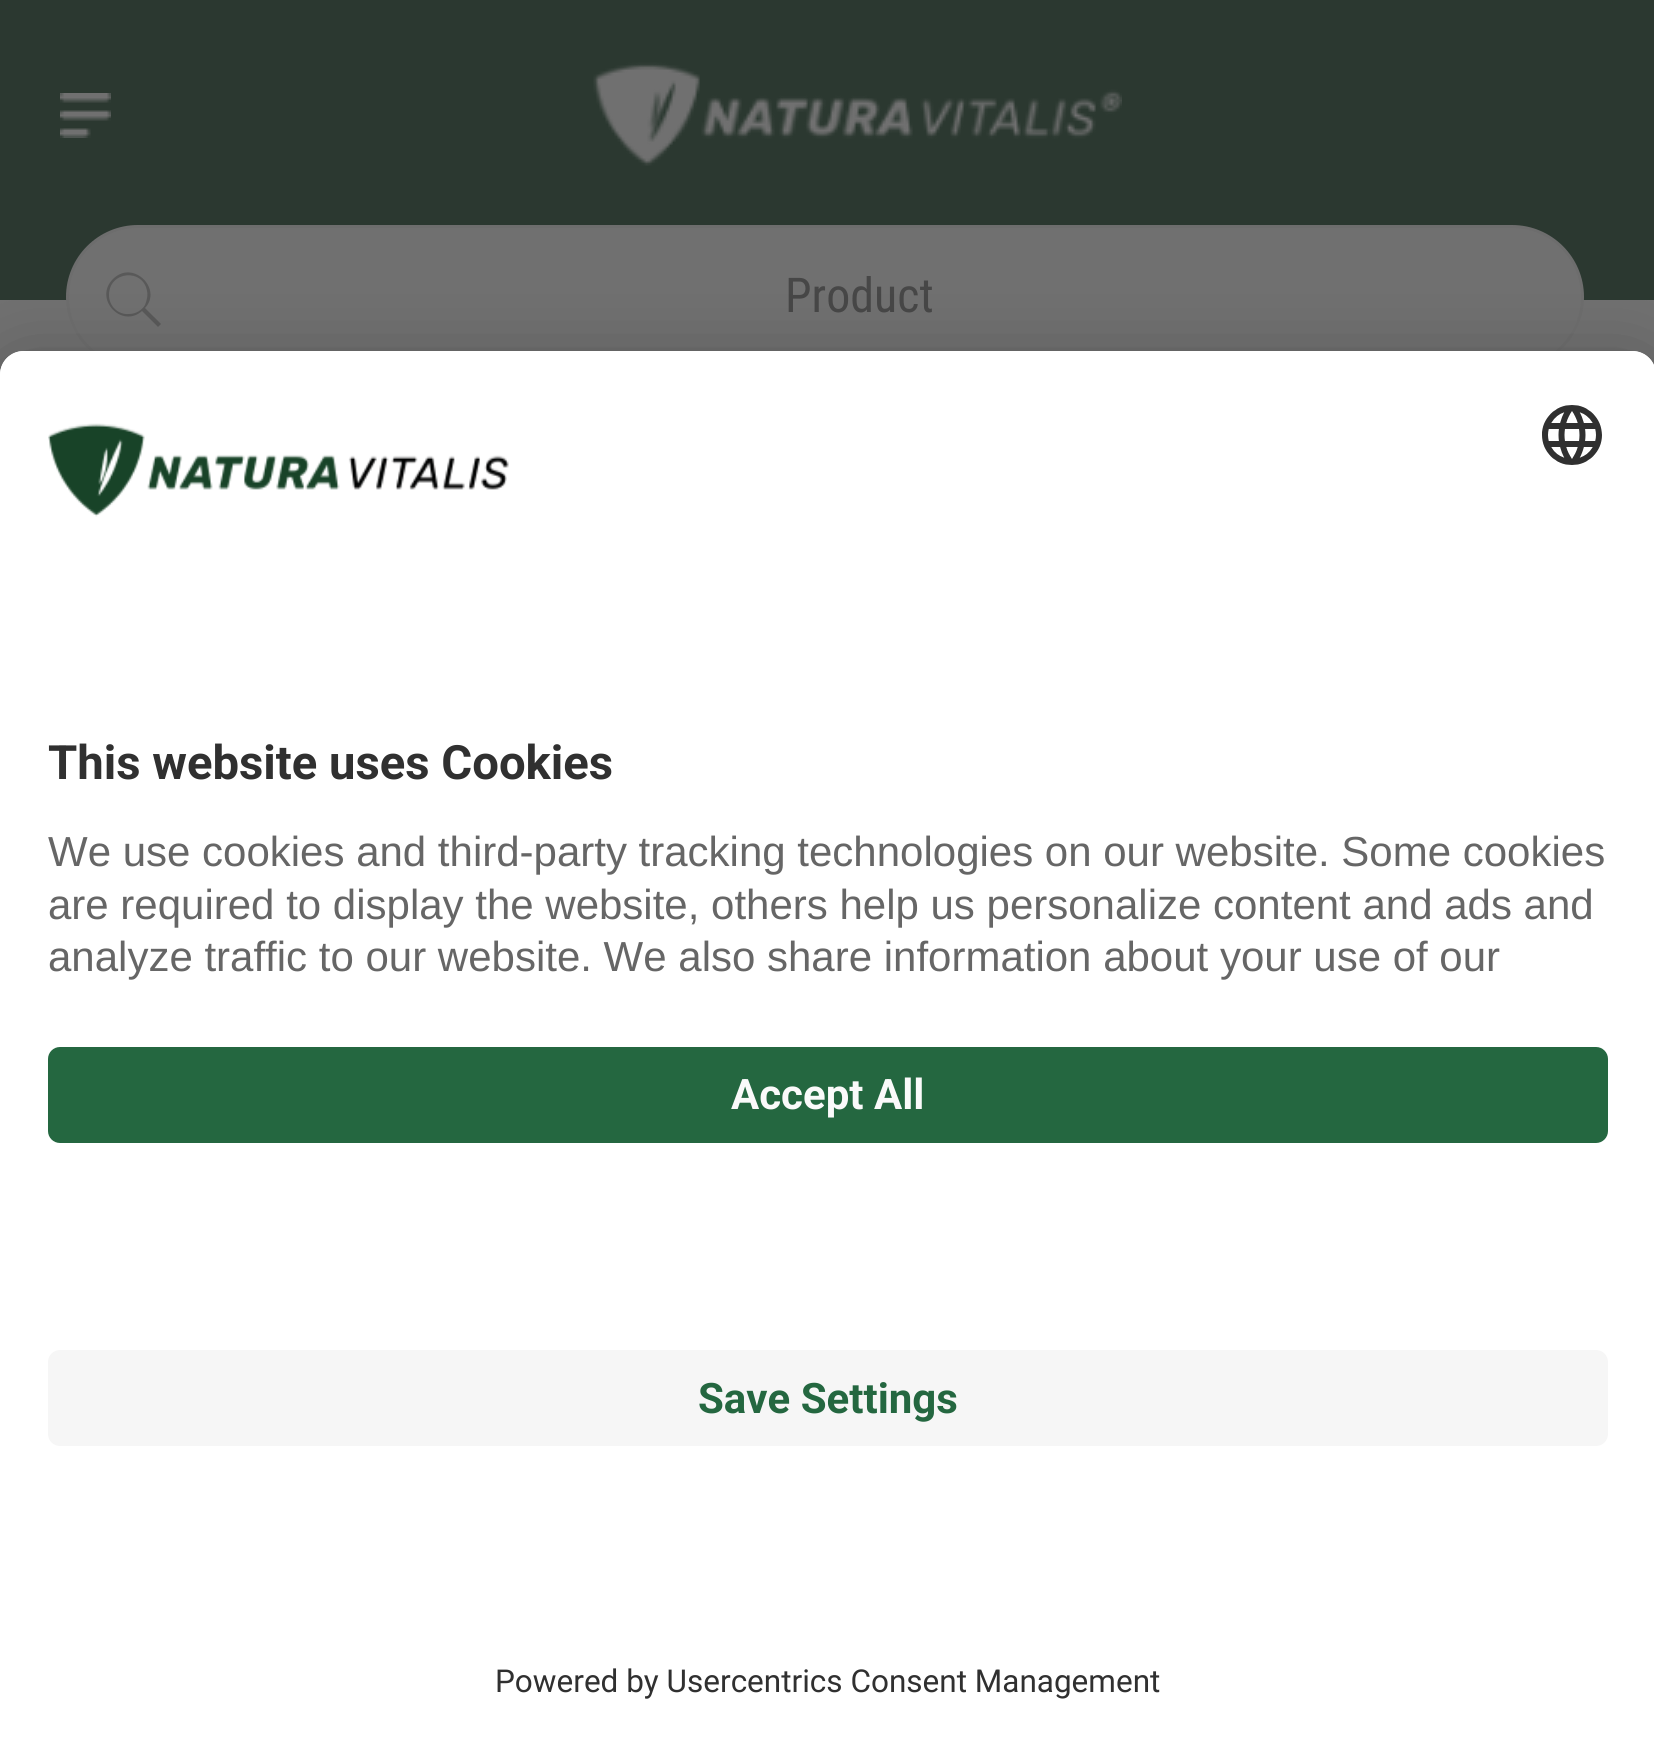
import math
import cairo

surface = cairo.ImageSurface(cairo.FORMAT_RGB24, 1654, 1747)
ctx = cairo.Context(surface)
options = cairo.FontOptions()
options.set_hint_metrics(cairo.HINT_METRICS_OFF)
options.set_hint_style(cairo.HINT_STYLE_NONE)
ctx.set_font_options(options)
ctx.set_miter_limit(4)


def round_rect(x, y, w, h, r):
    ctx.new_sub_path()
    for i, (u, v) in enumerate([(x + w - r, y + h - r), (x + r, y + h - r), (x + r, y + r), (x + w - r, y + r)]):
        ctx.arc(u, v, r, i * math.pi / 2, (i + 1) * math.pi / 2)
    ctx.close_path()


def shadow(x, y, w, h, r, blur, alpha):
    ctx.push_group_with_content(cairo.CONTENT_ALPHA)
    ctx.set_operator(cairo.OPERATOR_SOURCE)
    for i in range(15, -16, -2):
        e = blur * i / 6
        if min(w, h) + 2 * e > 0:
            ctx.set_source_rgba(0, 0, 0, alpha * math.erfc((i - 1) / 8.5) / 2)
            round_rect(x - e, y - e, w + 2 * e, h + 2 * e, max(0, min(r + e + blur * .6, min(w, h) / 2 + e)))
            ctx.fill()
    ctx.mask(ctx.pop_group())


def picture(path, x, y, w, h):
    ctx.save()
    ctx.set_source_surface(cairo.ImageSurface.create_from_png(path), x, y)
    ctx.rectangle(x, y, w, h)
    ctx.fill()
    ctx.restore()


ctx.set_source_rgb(0.439, 0.439, 0.439)
ctx.paint()
ctx.set_source_rgb(0.169, 0.22, 0.188)
ctx.rectangle(0, 0, 1654, 300)
ctx.fill()
picture("img1.png", 60, 93, 51, 45)
picture("img2.png", 593, 62, 529, 104)
ctx.set_source_rgb(0.439, 0.439, 0.439)
round_rect(67.5, 226.5, 1515, 141, 70.5)
ctx.fill_preserve()
ctx.set_source_rgb(0.427, 0.427, 0.427)
ctx.set_line_width(3)
ctx.stroke()
ctx.set_source_rgb(0.349, 0.349, 0.349)
ctx.new_path()
ctx.move_to(161, 324)
ctx.line_to(145, 308)
ctx.curve_to(163, 289, 133, 259, 113, 279)
ctx.curve_to(93, 299, 122, 329, 142, 311)
ctx.line_to(158, 327)
ctx.close_path()
ctx.move_to(109, 295)
ctx.curve_to(109, 271, 143, 268, 147, 291)
ctx.curve_to(148, 295, 147, 300, 145, 305)
ctx.curve_to(142, 310, 136, 314, 129, 314)
ctx.curve_to(118, 315, 109, 306, 109, 295)
ctx.close_path()
ctx.fill()
ctx.select_font_face("Roboto Condensed")
ctx.set_font_size(48)
ctx.set_source_rgb(0.278, 0.278, 0.278)
ctx.move_to(785, 312)
ctx.show_text("Product")
ctx.set_source_rgb(0, 0, 0)
shadow(0, 411, 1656, 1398, 24, 42, 0.3)
shadow(0, 366, 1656, 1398, 24, 39, 0.22)
ctx.set_source_rgb(1, 1, 1)
ctx.new_path()
ctx.move_to(24, 351)
ctx.line_to(1632, 351)
ctx.curve_to(1645.5, 351, 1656, 361.5, 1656, 375)
ctx.line_to(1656, 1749)
ctx.line_to(0, 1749)
ctx.line_to(0, 375)
ctx.curve_to(0, 361.5, 10.5, 351, 24, 351)
ctx.close_path()
ctx.fill()
ctx.new_path()
ctx.move_to(24, 351)
ctx.line_to(1632, 351)
ctx.curve_to(1645.5, 351, 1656, 361.5, 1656, 375)
ctx.line_to(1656, 1011)
ctx.line_to(0, 1011)
ctx.line_to(0, 375)
ctx.curve_to(0, 361.5, 10.5, 351, 24, 351)
ctx.close_path()
ctx.fill()
picture("img3.png", 48, 423, 461, 94)
picture("img4.png", 1542, 405, 60, 60)
ctx.select_font_face("Roboto", cairo.FONT_SLANT_NORMAL, cairo.FONT_WEIGHT_BOLD)
ctx.set_font_size(47.25)
ctx.set_source_rgb(0.188, 0.188, 0.188)
ctx.move_to(48, 779)
ctx.show_text("This website uses Cookies")
ctx.select_font_face("Liberation Sans")
ctx.set_font_size(42)
ctx.set_source_rgb(0.4, 0.4, 0.4)
ctx.move_to(48, 866)
ctx.show_text("We use cookies and third-party tracking technologies on our website. Some cookies")
ctx.move_to(48, 919)
ctx.show_text("are required to display the website, others help us personalize content and ads and")
ctx.move_to(48, 971)
ctx.show_text("analyze traffic to our website. We also share information about your use of our")
ctx.set_source_rgb(0.141, 0.404, 0.251)
round_rect(48, 1047, 1560, 96, 12)
ctx.fill()
ctx.select_font_face("Roboto", cairo.FONT_SLANT_NORMAL, cairo.FONT_WEIGHT_BOLD)
ctx.set_source_rgb(0.98, 0.98, 0.98)
ctx.move_to(731, 1109)
ctx.show_text("Accept All")
ctx.set_source_rgb(0.961, 0.961, 0.961)
round_rect(48, 1350, 1560, 96, 12)
ctx.fill()
ctx.set_source_rgb(0.141, 0.404, 0.251)
ctx.move_to(698, 1413)
ctx.show_text("Save Settings")
ctx.select_font_face("Roboto")
ctx.set_font_size(31.5)
ctx.set_source_rgb(0.188, 0.188, 0.188)
ctx.move_to(495, 1692)
ctx.show_text("Powered by Usercentrics Consent Management")
surface.write_to_png("page.png")
